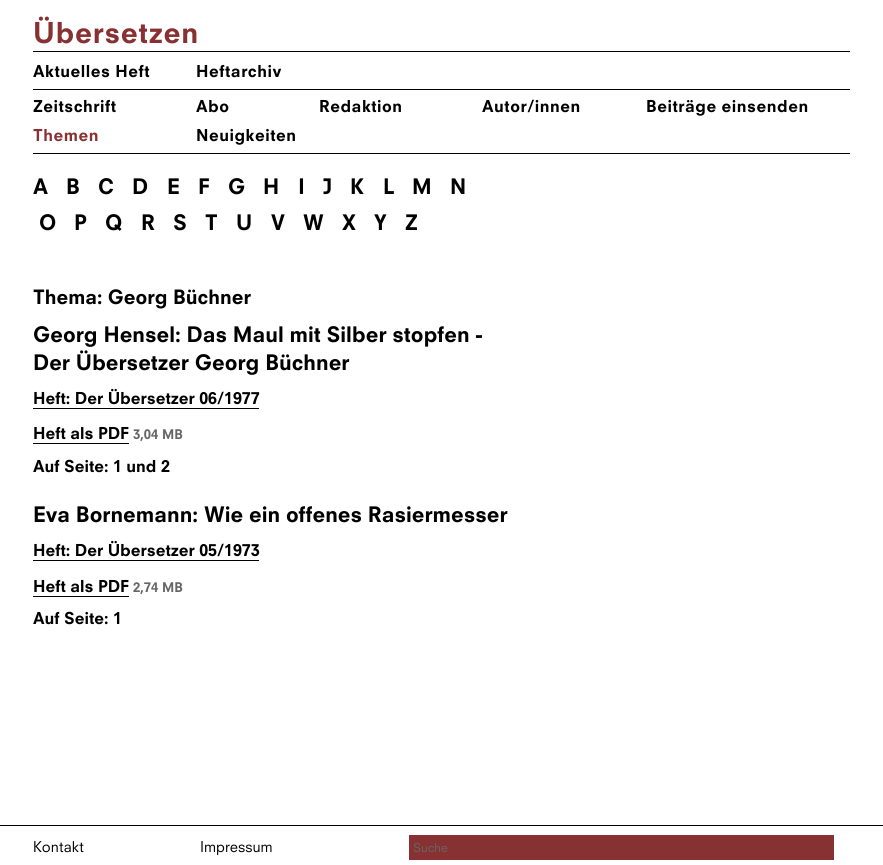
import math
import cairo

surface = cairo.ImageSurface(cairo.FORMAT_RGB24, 883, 865)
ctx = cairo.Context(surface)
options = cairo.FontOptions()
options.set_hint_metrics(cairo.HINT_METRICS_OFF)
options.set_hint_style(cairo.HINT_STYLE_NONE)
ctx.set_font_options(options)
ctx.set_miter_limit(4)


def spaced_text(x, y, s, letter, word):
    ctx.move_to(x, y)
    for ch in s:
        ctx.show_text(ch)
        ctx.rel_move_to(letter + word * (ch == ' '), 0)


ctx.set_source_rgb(1, 1, 1)
ctx.paint()
ctx.set_source_rgb(0, 0, 0)
ctx.rectangle(33, 51, 817, 1)
ctx.fill()
ctx.select_font_face("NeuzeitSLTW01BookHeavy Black")
ctx.set_font_size(28)
ctx.set_source_rgb(0.533, 0.192, 0.196)
spaced_text(33, 43, "Übersetzen", 0.75, 0)
ctx.set_source_rgb(0, 0, 0)
ctx.rectangle(33, 89, 817, 1)
ctx.fill()
ctx.set_font_size(16)
spaced_text(33, 77, "Aktuelles Heft", 0.5, 0)
spaced_text(196, 77, "Heftarchiv", 0.5, 0)
ctx.rectangle(33, 153, 817, 1)
ctx.fill()
spaced_text(33, 112, "Zeitschrift", 0.5, 0)
spaced_text(196, 112, "Abo", 0.5, 0)
spaced_text(319, 112, "Redaktion", 0.5, 0)
spaced_text(482, 112, "Autor/innen", 0.5, 0)
spaced_text(646, 112, "Beiträge einsenden", 0.5, 0)
ctx.set_source_rgb(0.533, 0.192, 0.196)
spaced_text(33, 141, "Themen", 0.5, 0)
ctx.set_source_rgb(0, 0, 0)
spaced_text(196, 141, "Neuigkeiten", 0.5, 0)
ctx.set_font_size(20.8)
ctx.move_to(33, 194)
ctx.show_text("A")
ctx.move_to(66, 194)
ctx.show_text("B")
ctx.move_to(98, 194)
ctx.show_text("C")
ctx.move_to(132, 194)
ctx.show_text("D")
ctx.move_to(167, 194)
ctx.show_text("E")
ctx.move_to(198, 194)
ctx.show_text("F")
ctx.move_to(228, 194)
ctx.show_text("G")
ctx.move_to(263, 194)
ctx.show_text("H")
ctx.move_to(298, 194)
ctx.show_text("I")
ctx.move_to(323, 194)
ctx.show_text("J")
ctx.move_to(350, 194)
ctx.show_text("K")
ctx.move_to(383, 194)
ctx.show_text("L")
ctx.move_to(412, 194)
ctx.show_text("M")
ctx.move_to(450, 194)
ctx.show_text("N")
ctx.move_to(39, 230)
ctx.show_text("O")
ctx.move_to(74, 230)
ctx.show_text("P")
ctx.move_to(105, 230)
ctx.show_text("Q")
ctx.move_to(141, 230)
ctx.show_text("R")
ctx.move_to(173, 230)
ctx.show_text("S")
ctx.move_to(205, 230)
ctx.show_text("T")
ctx.move_to(236, 230)
ctx.show_text("U")
ctx.move_to(271, 230)
ctx.show_text("V")
ctx.move_to(303, 230)
ctx.show_text("W")
ctx.move_to(342, 230)
ctx.show_text("X")
ctx.move_to(374, 230)
ctx.show_text("Y")
ctx.move_to(405, 230)
ctx.show_text("Z")
ctx.set_font_size(19.25)
ctx.move_to(33, 304)
ctx.show_text("Thema: Georg Büchner")
ctx.set_font_size(20.8)
ctx.move_to(33, 342)
ctx.show_text("Georg Hensel: Das Maul mit Silber stopfen -")
ctx.move_to(33, 370)
ctx.show_text("Der Übersetzer Georg Büchner")
ctx.set_font_size(16)
ctx.move_to(33, 404)
ctx.show_text("Heft: Der Übersetzer 06/1977")
ctx.rectangle(33, 408, 226, 1)
ctx.fill()
ctx.move_to(33, 439)
ctx.show_text("Heft als PDF")
ctx.rectangle(33, 443, 96, 1)
ctx.fill()
ctx.set_font_size(13)
ctx.set_source_rgb(0.4, 0.4, 0.4)
ctx.move_to(133, 439)
ctx.show_text("3,04 MB")
ctx.set_font_size(16)
ctx.set_source_rgb(0, 0, 0)
ctx.move_to(33, 472)
ctx.show_text("Auf Seite: 1 und 2")
ctx.set_font_size(20.8)
ctx.move_to(33, 522)
ctx.show_text("Eva Bornemann: Wie ein offenes Rasiermesser")
ctx.set_font_size(16)
ctx.move_to(33, 556)
ctx.show_text("Heft: Der Übersetzer 05/1973")
ctx.rectangle(33, 560, 226, 1)
ctx.fill()
ctx.move_to(33, 592)
ctx.show_text("Heft als PDF")
ctx.rectangle(33, 596, 96, 1)
ctx.fill()
ctx.set_font_size(13)
ctx.set_source_rgb(0.4, 0.4, 0.4)
ctx.move_to(133, 592)
ctx.show_text("2,74 MB")
ctx.set_font_size(16)
ctx.set_source_rgb(0, 0, 0)
ctx.move_to(33, 624)
ctx.show_text("Auf Seite: 1")
ctx.rectangle(0, 825, 883, 1)
ctx.fill()
ctx.select_font_face("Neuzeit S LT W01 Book")
ctx.set_font_size(14.5)
ctx.move_to(33, 852)
ctx.show_text("Kontakt")
ctx.move_to(200, 852)
ctx.show_text("Impressum")
ctx.set_source_rgb(0.533, 0.192, 0.196)
ctx.rectangle(409, 835, 425, 25)
ctx.fill()
ctx.set_font_size(12)
ctx.set_source_rgb(0.4, 0.4, 0.4)
ctx.move_to(413, 852)
ctx.show_text("Suche")
surface.write_to_png("page.png")
